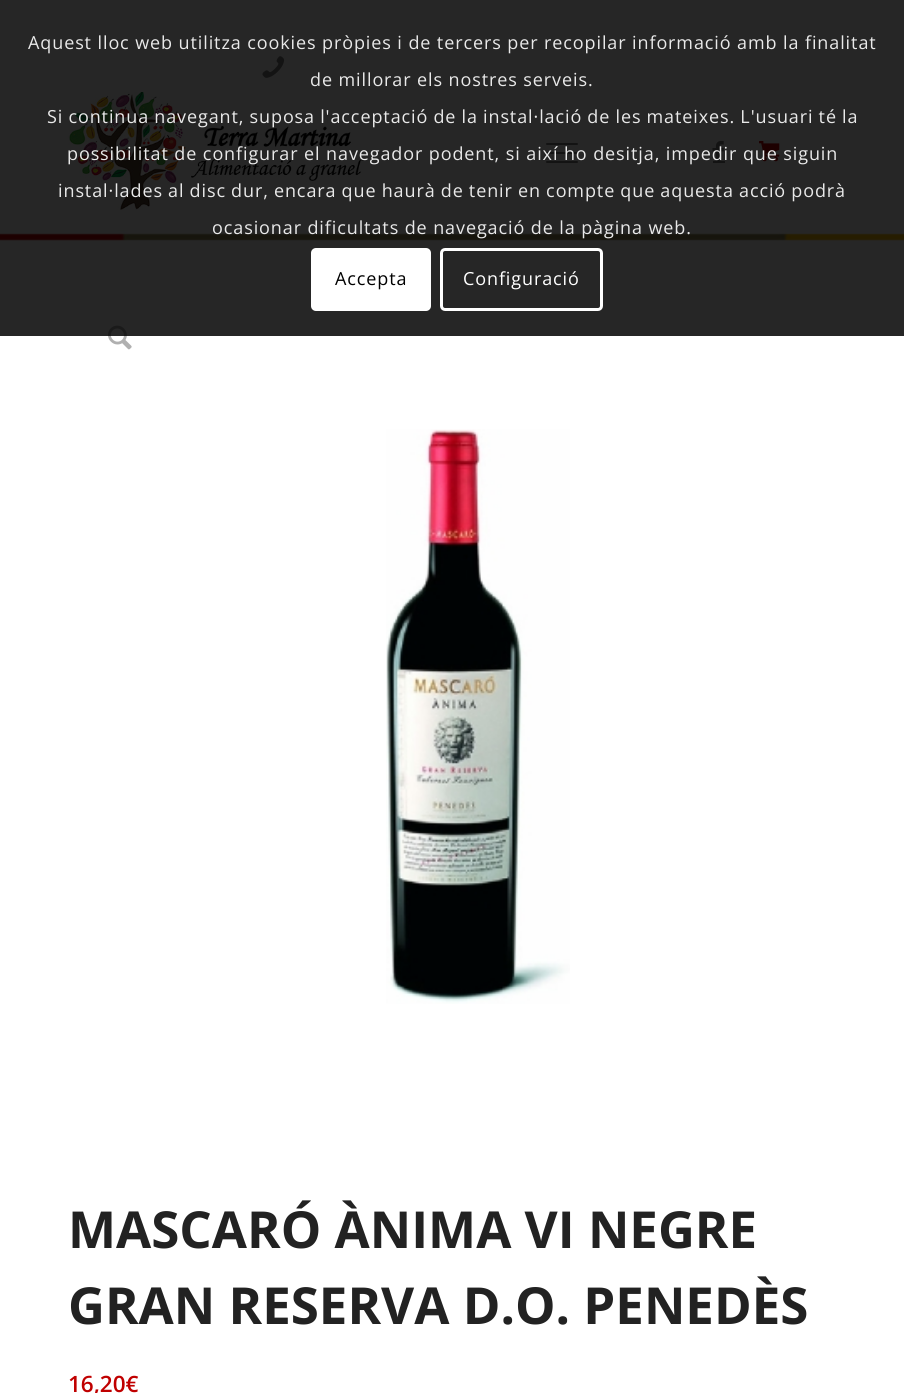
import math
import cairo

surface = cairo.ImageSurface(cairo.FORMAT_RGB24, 904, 1393)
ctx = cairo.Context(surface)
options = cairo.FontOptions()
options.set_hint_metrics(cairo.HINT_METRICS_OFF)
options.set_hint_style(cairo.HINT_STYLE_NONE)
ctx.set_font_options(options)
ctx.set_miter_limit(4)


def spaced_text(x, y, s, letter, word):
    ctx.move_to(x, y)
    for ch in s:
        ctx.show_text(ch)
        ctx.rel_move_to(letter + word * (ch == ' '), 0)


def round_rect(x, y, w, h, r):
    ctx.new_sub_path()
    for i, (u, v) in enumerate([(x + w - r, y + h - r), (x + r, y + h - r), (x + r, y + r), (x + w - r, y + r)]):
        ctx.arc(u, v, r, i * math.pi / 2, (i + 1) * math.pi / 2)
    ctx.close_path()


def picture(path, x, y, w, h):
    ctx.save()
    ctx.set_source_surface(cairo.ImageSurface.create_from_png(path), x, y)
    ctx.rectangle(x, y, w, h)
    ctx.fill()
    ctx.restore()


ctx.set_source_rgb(1, 1, 1)
ctx.paint()
picture("img1.png", 262, 56, 23, 22)
picture("img2.png", 68, 92, 297, 118)
ctx.set_source_rgb(0.502, 0.502, 0.502)
round_rect(546, 152, 32, 2, 1)
ctx.fill()
round_rect(546, 143, 32, 2, 1)
ctx.fill()
round_rect(546, 161, 32, 2, 1)
ctx.fill()
picture("img3.png", 712, 141, 12, 20)
ctx.rectangle(713, 161, 12, 2)
ctx.fill()
picture("img4.png", 759, 141, 21, 21)
picture("img5.png", 0, 230, 904, 11)
picture("img6.png", 108, 325, 24, 25)
ctx.set_source_rgba(0, 0, 0, 0.85)
ctx.rectangle(0, 0, 904, 336)
ctx.fill()
ctx.select_font_face("Open Sans")
ctx.set_font_size(18)
ctx.set_source_rgb(0.914, 0.914, 0.914)
spaced_text(28, 49, "Aquest lloc web utilitza cookies pròpies i de tercers per recopilar informació amb la finalitat", 0.9, 0)
spaced_text(310, 86, "de millorar els nostres serveis.", 0.9, 0)
spaced_text(47, 123, "Si continua navegant, suposa l'acceptació de la instal·lació de les mateixes. L'usuari té la", 0.9, -0.4)
spaced_text(67, 160, "possibilitat de configurar el navegador podent, si així ho desitja, impedir que siguin", 0.9, 0)
spaced_text(58, 197, "instal·lades al disc dur, encara que haurà de tenir en compte que aquesta acció podrà", 0.9, -0.4)
spaced_text(212, 234, "ocasionar dificultats de navegació de la pàgina web.", 0.9, 0)
ctx.set_source_rgb(1, 1, 1)
round_rect(311, 248, 120, 63, 5)
ctx.fill()
ctx.set_source_rgb(0, 0, 0)
spaced_text(335, 285, "Accepta", 0.9, 0)
round_rect(441.5, 249.5, 160, 60, 3.5)
ctx.set_source_rgb(1, 1, 1)
ctx.set_line_width(3)
ctx.stroke()
spaced_text(463, 285, "Configuració", 0.9, 0)
picture("img7.png", 386, 429, 184, 575)
ctx.select_font_face("Open Sans", cairo.FONT_SLANT_NORMAL, cairo.FONT_WEIGHT_BOLD)
ctx.set_font_size(51)
ctx.set_source_rgb(0.133, 0.133, 0.133)
ctx.move_to(68, 1248)
ctx.show_text("MASCARÓ ÀNIMA VI NEGRE")
ctx.move_to(68, 1324)
ctx.show_text("GRAN RESERVA D.O. PENEDÈS")
ctx.select_font_face("Open Sans SemiBold")
ctx.set_font_size(22.5)
ctx.set_source_rgb(0.753, 0, 0)
ctx.move_to(68, 1392)
ctx.show_text("16,20€")
surface.write_to_png("page.png")
